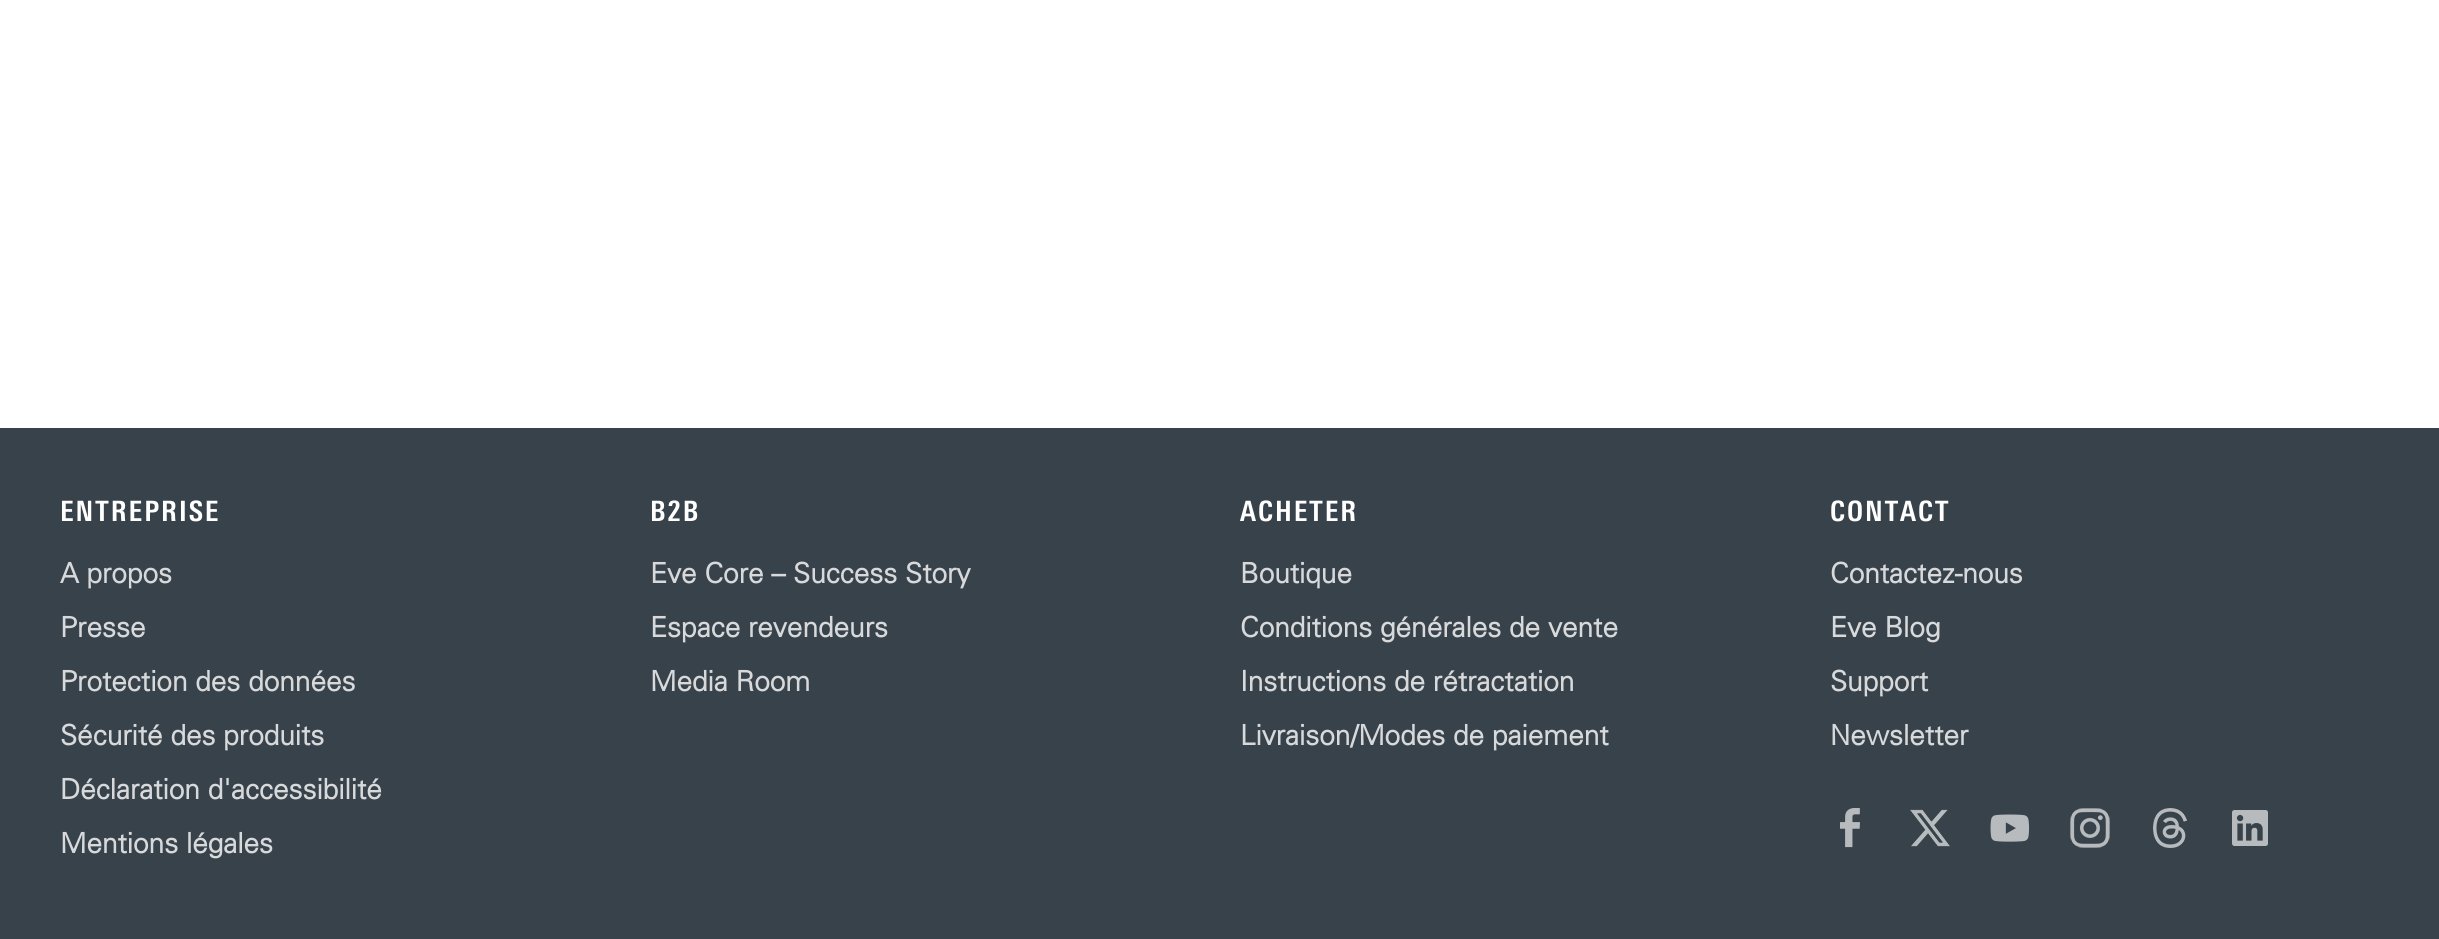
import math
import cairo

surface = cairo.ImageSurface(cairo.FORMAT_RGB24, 2439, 939)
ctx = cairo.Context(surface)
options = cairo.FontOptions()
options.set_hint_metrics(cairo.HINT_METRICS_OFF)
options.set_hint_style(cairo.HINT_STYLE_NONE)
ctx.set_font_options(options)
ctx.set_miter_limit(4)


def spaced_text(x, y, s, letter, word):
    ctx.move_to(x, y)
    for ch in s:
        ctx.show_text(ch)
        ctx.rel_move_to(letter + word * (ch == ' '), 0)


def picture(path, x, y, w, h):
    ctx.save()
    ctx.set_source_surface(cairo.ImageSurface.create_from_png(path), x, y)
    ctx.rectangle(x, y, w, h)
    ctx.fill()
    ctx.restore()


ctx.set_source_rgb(1, 1, 1)
ctx.paint()
ctx.set_source_rgb(0.22, 0.259, 0.294)
ctx.rectangle(0, 428, 2439, 511)
ctx.fill()
ctx.select_font_face("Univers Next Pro", cairo.FONT_SLANT_NORMAL, cairo.FONT_WEIGHT_BOLD)
ctx.set_font_size(28)
ctx.set_source_rgb(1, 1, 1)
spaced_text(60, 521, "ENTREPRISE", 2, 0)
ctx.select_font_face("Univers", cairo.FONT_SLANT_NORMAL, cairo.FONT_WEIGHT_BOLD)
ctx.set_source_rgb(0.843, 0.851, 0.859)
ctx.move_to(60, 583)
ctx.show_text("A propos")
ctx.move_to(60, 637)
ctx.show_text("Presse")
ctx.move_to(60, 691)
ctx.show_text("Protection des données")
ctx.move_to(60, 745)
ctx.show_text("Sécurité des produits")
ctx.move_to(60, 799)
ctx.show_text("Déclaration d'accessibilité")
ctx.move_to(60, 853)
ctx.show_text("Mentions légales")
ctx.select_font_face("Univers Next Pro", cairo.FONT_SLANT_NORMAL, cairo.FONT_WEIGHT_BOLD)
ctx.set_source_rgb(1, 1, 1)
spaced_text(650, 521, "B2B", 2, 0)
ctx.select_font_face("Univers", cairo.FONT_SLANT_NORMAL, cairo.FONT_WEIGHT_BOLD)
ctx.set_source_rgb(0.843, 0.851, 0.859)
ctx.move_to(650, 583)
ctx.show_text("Eve Core – Success Story")
ctx.move_to(650, 637)
ctx.show_text("Espace revendeurs")
ctx.move_to(650, 691)
ctx.show_text("Media Room")
ctx.select_font_face("Univers Next Pro", cairo.FONT_SLANT_NORMAL, cairo.FONT_WEIGHT_BOLD)
ctx.set_source_rgb(1, 1, 1)
spaced_text(1240, 521, "ACHETER", 2, 0)
ctx.select_font_face("Univers", cairo.FONT_SLANT_NORMAL, cairo.FONT_WEIGHT_BOLD)
ctx.set_source_rgb(0.843, 0.851, 0.859)
ctx.move_to(1240, 583)
ctx.show_text("Boutique")
ctx.move_to(1240, 637)
ctx.show_text("Conditions générales de vente")
ctx.move_to(1240, 691)
ctx.show_text("Instructions de rétractation")
ctx.move_to(1240, 745)
ctx.show_text("Livraison/Modes de paiement")
ctx.select_font_face("Univers Next Pro", cairo.FONT_SLANT_NORMAL, cairo.FONT_WEIGHT_BOLD)
ctx.set_source_rgb(1, 1, 1)
spaced_text(1830, 521, "CONTACT", 2, 0)
ctx.select_font_face("Univers", cairo.FONT_SLANT_NORMAL, cairo.FONT_WEIGHT_BOLD)
ctx.set_source_rgb(0.843, 0.851, 0.859)
ctx.move_to(1830, 583)
ctx.show_text("Contactez-nous")
ctx.move_to(1830, 637)
ctx.show_text("Eve Blog")
ctx.move_to(1830, 691)
ctx.show_text("Support")
ctx.move_to(1830, 745)
ctx.show_text("Newsletter")
picture("img1.png", 1840, 808, 20, 40)
picture("img2.png", 1910, 809, 40, 38)
picture("img3.png", 1990, 814, 40, 28)
picture("img4.png", 2070, 808, 40, 40)
picture("img5.png", 2153, 808, 34, 40)
picture("img6.png", 2232, 810, 36, 36)
surface.write_to_png("page.png")
